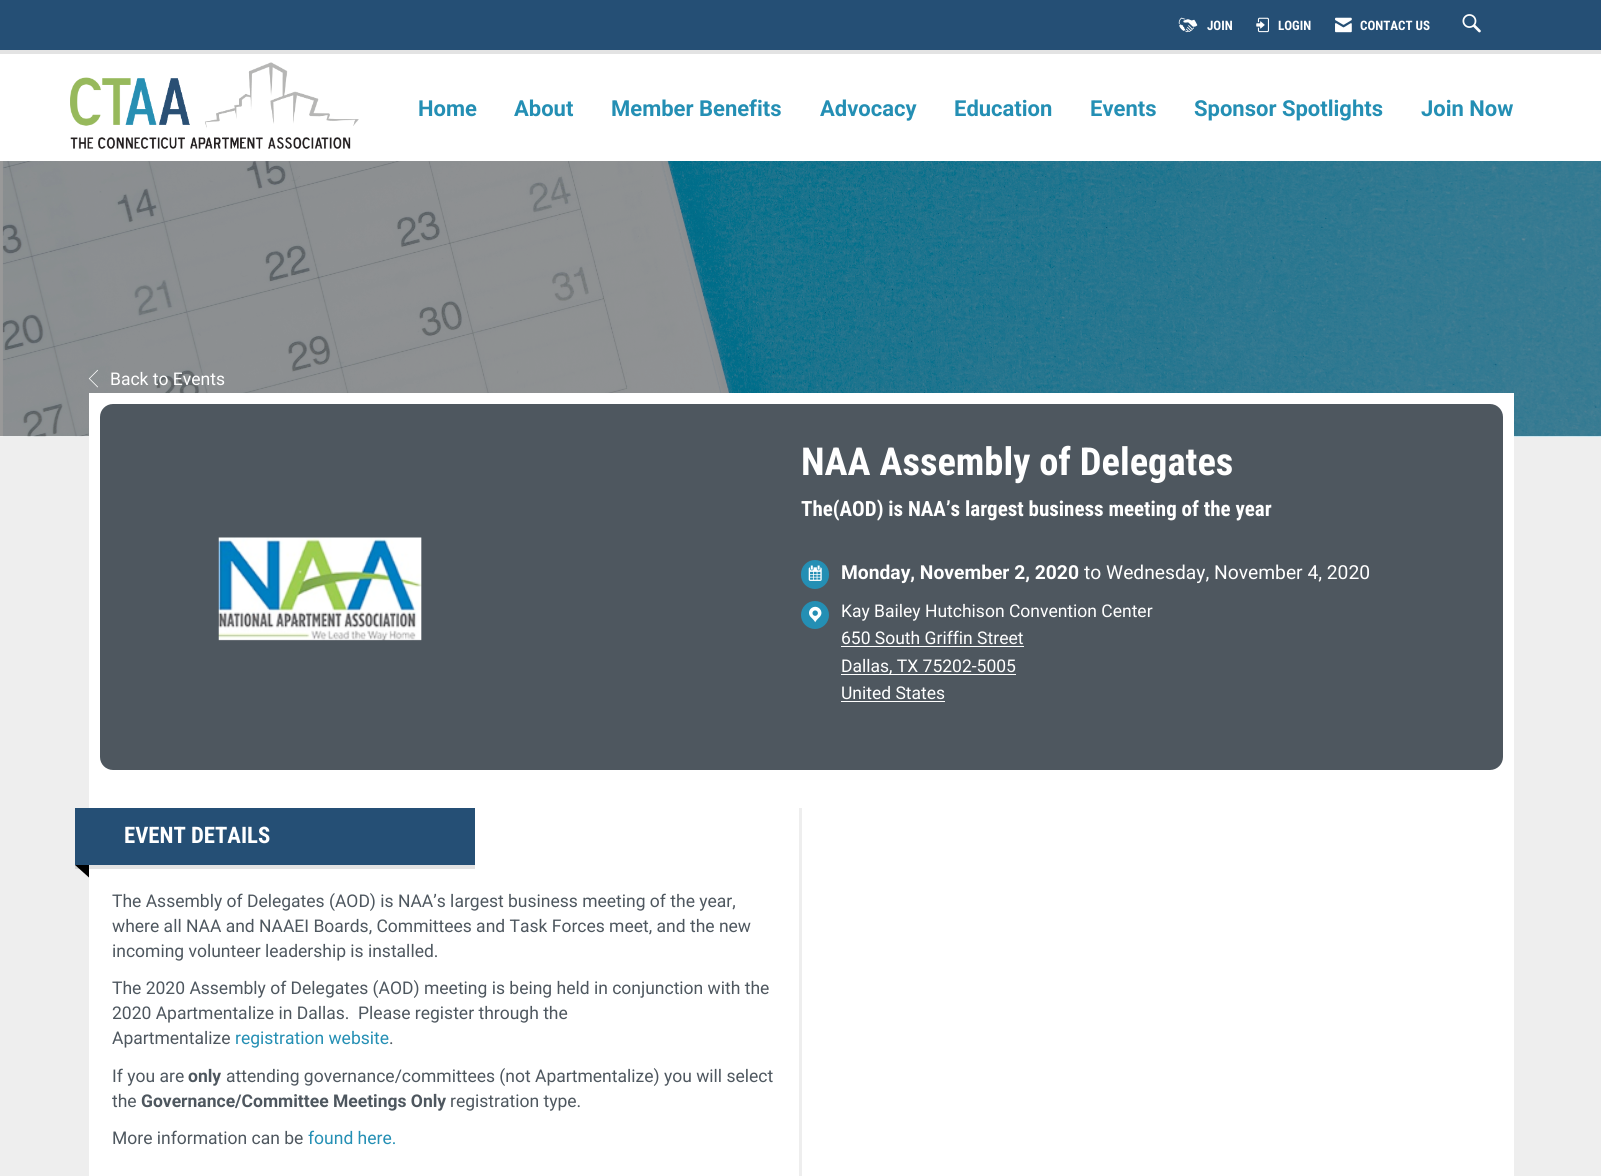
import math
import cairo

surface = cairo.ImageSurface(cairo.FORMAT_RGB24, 1601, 1176)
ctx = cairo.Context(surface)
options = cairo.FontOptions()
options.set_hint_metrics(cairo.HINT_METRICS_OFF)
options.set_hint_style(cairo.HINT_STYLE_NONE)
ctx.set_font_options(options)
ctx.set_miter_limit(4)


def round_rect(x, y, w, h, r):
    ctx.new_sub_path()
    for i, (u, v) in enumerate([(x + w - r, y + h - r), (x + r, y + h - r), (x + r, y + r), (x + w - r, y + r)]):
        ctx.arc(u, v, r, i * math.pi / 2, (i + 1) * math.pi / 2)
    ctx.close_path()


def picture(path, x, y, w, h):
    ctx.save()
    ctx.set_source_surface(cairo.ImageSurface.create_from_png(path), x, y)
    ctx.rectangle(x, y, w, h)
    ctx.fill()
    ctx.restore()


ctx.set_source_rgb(0.933, 0.933, 0.933)
ctx.paint()
ctx.set_source_rgb(1, 1, 1)
ctx.rectangle(0, 54, 1601, 107)
ctx.fill()
ctx.set_source_rgb(0.89, 0.89, 0.89)
ctx.rectangle(0, 50, 1601, 4)
ctx.fill()
ctx.set_source_rgb(0.145, 0.31, 0.459)
ctx.rectangle(0, 0, 1601, 50)
ctx.fill()
picture("img1.png", 1178, 17, 20, 16)
ctx.select_font_face("Roboto Condensed", cairo.FONT_SLANT_NORMAL, cairo.FONT_WEIGHT_BOLD)
ctx.set_font_size(13)
ctx.set_source_rgb(1, 1, 1)
ctx.move_to(1207, 30)
ctx.show_text("JOIN")
picture("img2.png", 1256, 17, 13, 16)
ctx.move_to(1278, 30)
ctx.show_text("LOGIN")
picture("img3.png", 1335, 17, 17, 16)
ctx.move_to(1360, 30)
ctx.show_text("CONTACT US")
picture("img4.png", 1462, 14, 19, 19)
picture("img5.png", 70, 62, 289, 87)
ctx.select_font_face("Roboto", cairo.FONT_SLANT_NORMAL, cairo.FONT_WEIGHT_BOLD)
ctx.set_font_size(22)
ctx.set_source_rgb(0.141, 0.561, 0.706)
ctx.move_to(418, 116)
ctx.show_text("Home")
ctx.move_to(514, 116)
ctx.show_text("About")
ctx.move_to(611, 116)
ctx.show_text("Member Benefits")
ctx.move_to(820, 116)
ctx.show_text("Advocacy")
ctx.move_to(954, 116)
ctx.show_text("Education")
ctx.move_to(1090, 116)
ctx.show_text("Events")
ctx.move_to(1194, 116)
ctx.show_text("Sponsor Spotlights")
ctx.move_to(1421, 116)
ctx.show_text("Join Now")
ctx.set_source_rgb(0.831, 0.831, 0.831)
ctx.rectangle(75, 865, 5, 4)
ctx.fill()
picture("img6.png", 0, 161, 1601, 276)
picture("img7.png", 88, 369, 10, 19)
ctx.select_font_face("Roboto")
ctx.set_font_size(17.5)
ctx.set_source_rgb(1, 1, 1)
ctx.move_to(110, 385)
ctx.show_text("Back to Events")
ctx.rectangle(89, 393, 1425, 783)
ctx.fill()
ctx.set_source_rgb(0.89, 0.89, 0.89)
ctx.rectangle(89, 865, 386, 4)
ctx.fill()
ctx.set_source_rgb(0.306, 0.341, 0.373)
round_rect(100, 404, 1403, 366, 13)
ctx.fill()
picture("img8.png", 218, 537, 204, 104)
ctx.select_font_face("Roboto Condensed", cairo.FONT_SLANT_NORMAL, cairo.FONT_WEIGHT_BOLD)
ctx.set_font_size(38.5)
ctx.set_source_rgb(1, 1, 1)
ctx.move_to(801, 475)
ctx.show_text("NAA Assembly of Delegates")
ctx.set_font_size(21)
ctx.move_to(801, 516)
ctx.show_text("The(AOD) is NAA’s largest business meeting of the year")
ctx.set_source_rgb(0.141, 0.561, 0.706)
round_rect(801, 560, 28, 29, 14)
ctx.fill()
picture("img9.png", 808, 565, 14, 16)
ctx.select_font_face("Roboto", cairo.FONT_SLANT_NORMAL, cairo.FONT_WEIGHT_BOLD)
ctx.set_font_size(19.25)
ctx.set_source_rgb(1, 1, 1)
ctx.move_to(841, 579)
ctx.show_text("Monday, November 2, 2020")
ctx.select_font_face("Roboto")
ctx.move_to(1084, 579)
ctx.show_text("to Wednesday, November 4, 2020")
ctx.set_source_rgb(0.141, 0.561, 0.706)
ctx.new_path()
ctx.arc(815, 615, 14, 0, 2 * math.pi)
ctx.fill()
picture("img10.png", 809, 606, 13, 17)
ctx.set_font_size(17.5)
ctx.set_source_rgb(1, 1, 1)
ctx.move_to(841, 617)
ctx.show_text("Kay Bailey Hutchison Convention Center")
ctx.move_to(841, 644)
ctx.show_text("650 South Griffin Street")
ctx.rectangle(841, 646, 183, 1)
ctx.fill()
ctx.rectangle(841, 674, 175, 1)
ctx.fill()
ctx.move_to(841, 672)
ctx.show_text("Dallas, TX 75202-5005")
ctx.move_to(841, 699)
ctx.show_text("United States")
ctx.rectangle(841, 701, 104, 1)
ctx.fill()
ctx.set_source_rgb(0.933, 0.933, 0.933)
ctx.rectangle(799, 808, 3, 368)
ctx.fill()
ctx.set_source_rgb(0.145, 0.31, 0.459)
ctx.rectangle(75, 808, 400, 57)
ctx.fill()
ctx.select_font_face("Roboto Condensed", cairo.FONT_SLANT_NORMAL, cairo.FONT_WEIGHT_BOLD)
ctx.set_font_size(22.75)
ctx.set_source_rgb(1, 1, 1)
ctx.move_to(124, 843)
ctx.show_text("EVENT DETAILS")
ctx.set_source_rgb(0, 0, 0)
ctx.new_path()
ctx.move_to(75, 865)
ctx.line_to(89, 865)
ctx.line_to(89, 877.5)
ctx.close_path()
ctx.fill()
ctx.select_font_face("Roboto")
ctx.set_font_size(17.5)
ctx.set_source_rgb(0.306, 0.341, 0.373)
ctx.move_to(112, 907)
ctx.show_text("The Assembly of Delegates (AOD) is NAA’s largest business meeting of the year,")
ctx.move_to(112, 932)
ctx.show_text("where all NAA and NAAEI Boards, Committees and Task Forces meet, and the new")
ctx.move_to(112, 957)
ctx.show_text("incoming volunteer leadership is installed.")
ctx.move_to(112, 994)
ctx.show_text("The 2020 Assembly of Delegates (AOD) meeting is being held in conjunction with the")
ctx.move_to(112, 1019)
ctx.show_text("2020 Apartmentalize in Dallas.  Please register through the")
ctx.move_to(112, 1044)
ctx.show_text("Apartmentalize")
ctx.set_source_rgb(0.141, 0.561, 0.706)
ctx.move_to(235, 1044)
ctx.show_text("registration website")
ctx.set_source_rgb(0.306, 0.341, 0.373)
ctx.move_to(389, 1044)
ctx.show_text(".")
ctx.move_to(112, 1082)
ctx.show_text("If you are")
ctx.select_font_face("Roboto", cairo.FONT_SLANT_NORMAL, cairo.FONT_WEIGHT_BOLD)
ctx.move_to(188, 1082)
ctx.show_text("only")
ctx.select_font_face("Roboto")
ctx.move_to(226, 1082)
ctx.show_text("attending governance/committees (not Apartmentalize) you will select")
ctx.move_to(112, 1107)
ctx.show_text("the")
ctx.select_font_face("Roboto", cairo.FONT_SLANT_NORMAL, cairo.FONT_WEIGHT_BOLD)
ctx.move_to(141, 1107)
ctx.show_text("Governance/Committee Meetings Only")
ctx.select_font_face("Roboto")
ctx.move_to(450, 1107)
ctx.show_text("registration type.")
ctx.move_to(112, 1144)
ctx.show_text("More information can be")
ctx.set_source_rgb(0.141, 0.561, 0.706)
ctx.move_to(308, 1144)
ctx.show_text("found here.")
surface.write_to_png("page.png")
